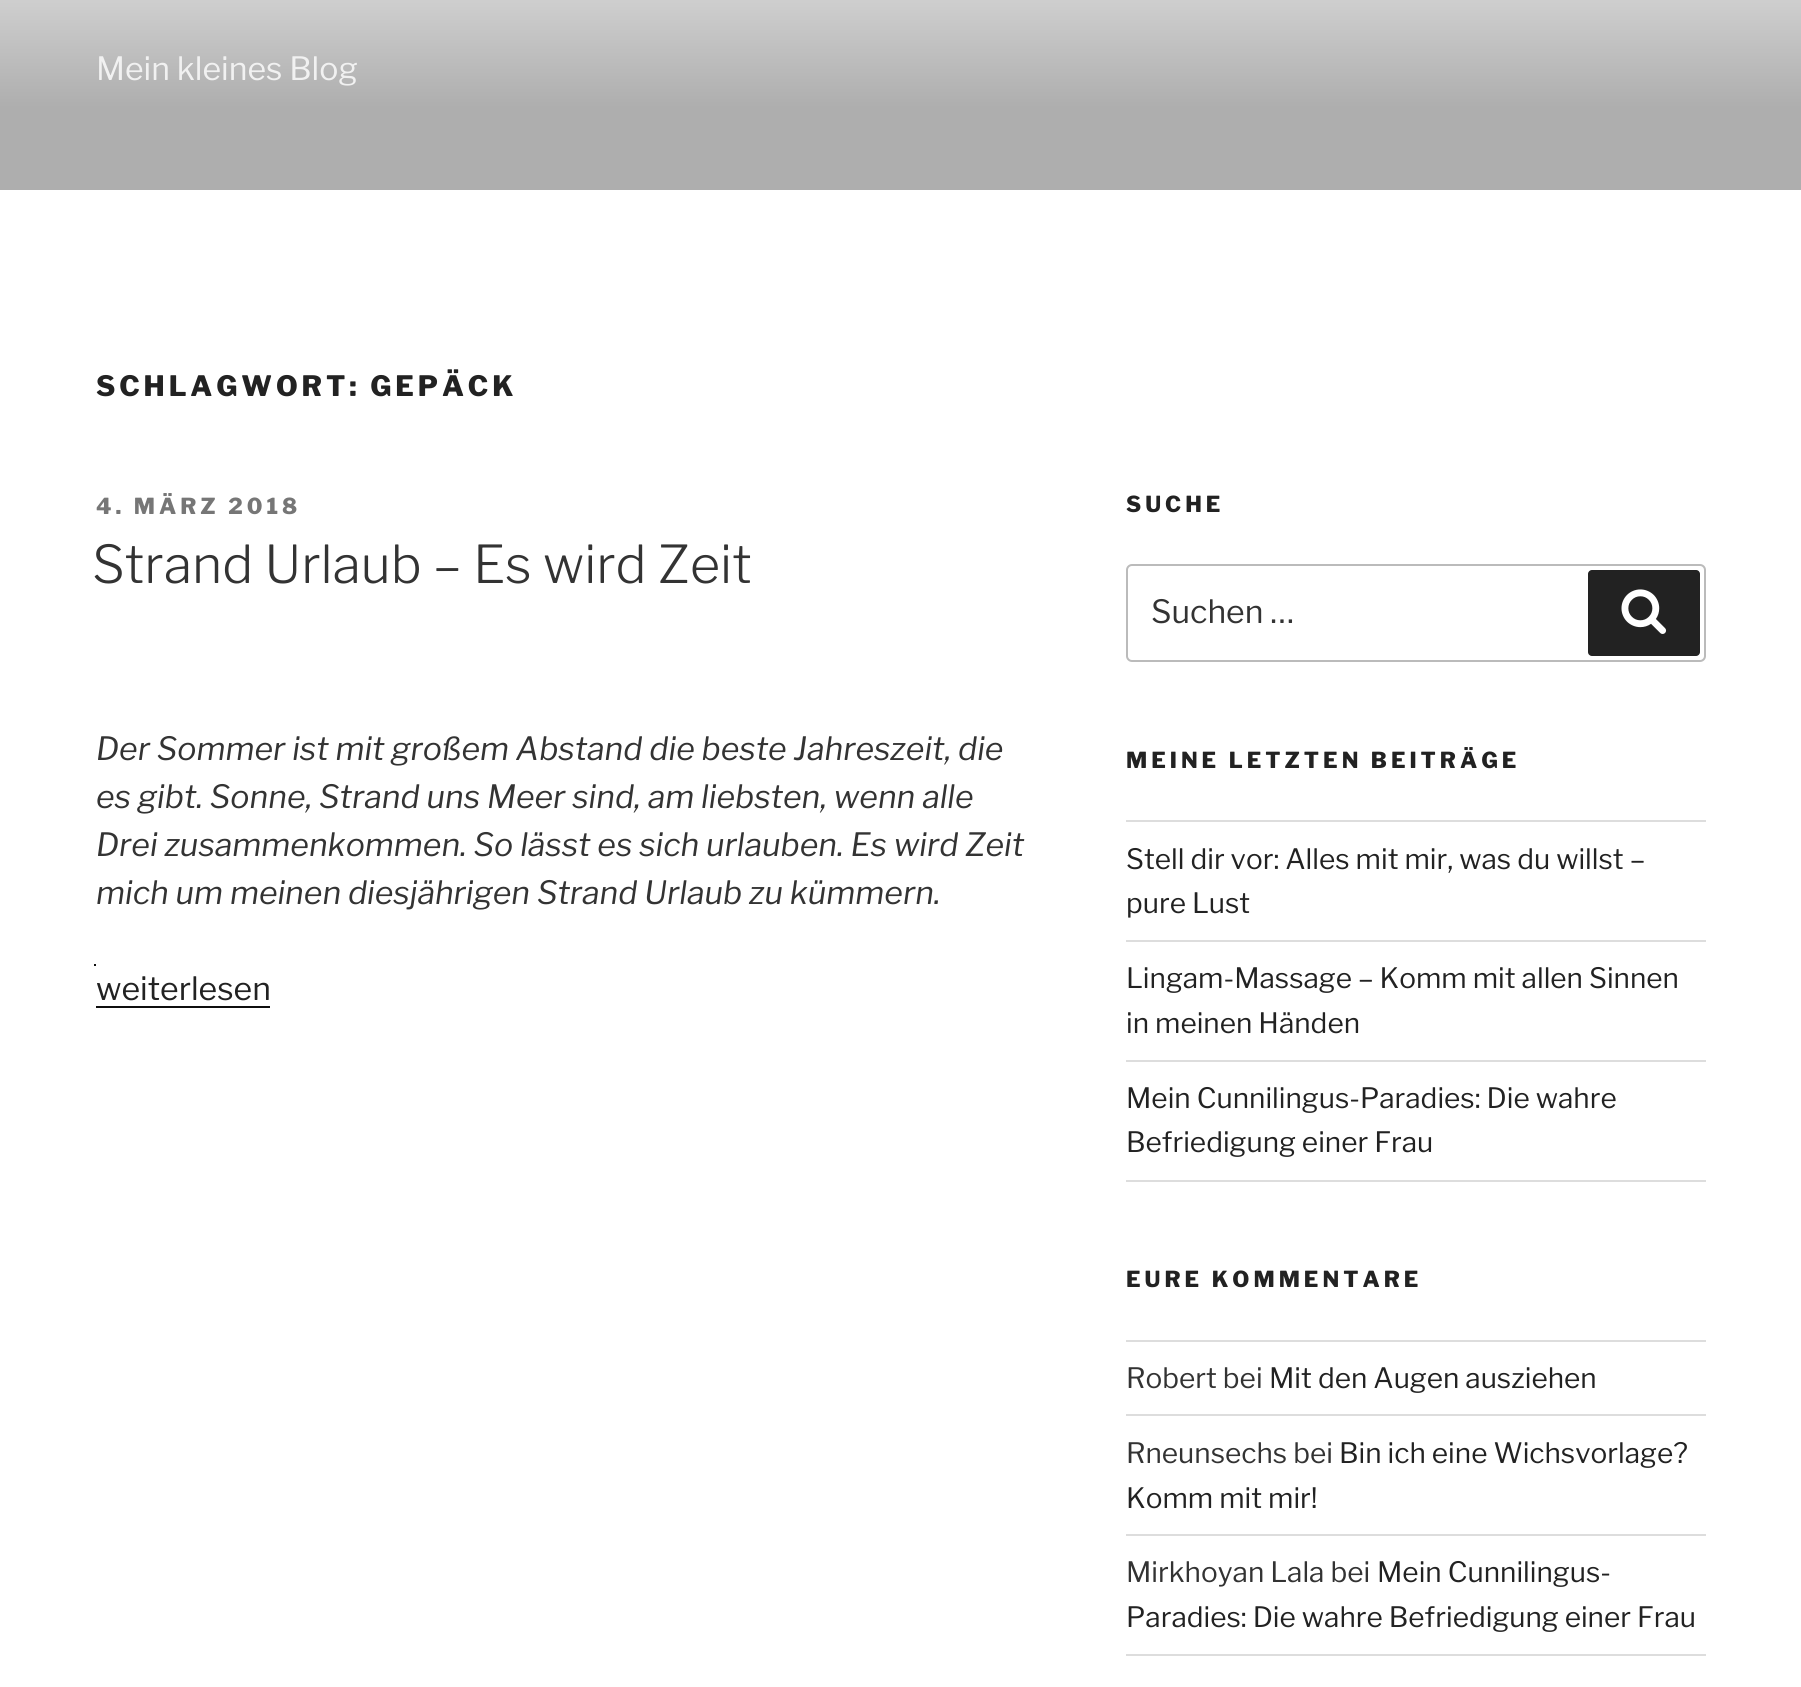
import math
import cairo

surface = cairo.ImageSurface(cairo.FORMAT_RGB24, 1801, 1687)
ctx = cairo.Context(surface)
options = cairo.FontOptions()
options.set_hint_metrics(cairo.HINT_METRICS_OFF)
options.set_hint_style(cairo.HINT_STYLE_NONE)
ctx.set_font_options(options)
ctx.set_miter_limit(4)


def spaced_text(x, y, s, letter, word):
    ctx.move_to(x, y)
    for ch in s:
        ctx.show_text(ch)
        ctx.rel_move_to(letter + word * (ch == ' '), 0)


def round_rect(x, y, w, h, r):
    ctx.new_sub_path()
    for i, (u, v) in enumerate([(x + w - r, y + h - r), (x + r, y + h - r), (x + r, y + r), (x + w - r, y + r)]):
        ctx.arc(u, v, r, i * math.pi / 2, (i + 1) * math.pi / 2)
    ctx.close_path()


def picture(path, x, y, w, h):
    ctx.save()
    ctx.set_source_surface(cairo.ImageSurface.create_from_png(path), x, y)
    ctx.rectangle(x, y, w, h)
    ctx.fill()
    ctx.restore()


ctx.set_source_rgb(1, 1, 1)
ctx.paint()
gradient = cairo.LinearGradient(901, -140, 901, 190)
gradient.add_color_stop_rgba(0, 0.976, 0.976, 0.976, 1)
gradient.add_color_stop_rgba(0.75, 0.682, 0.682, 0.682, 1)
gradient.add_color_stop_rgba(1, 0.682, 0.682, 0.682, 1)
ctx.set_source(gradient)
ctx.rectangle(0, 0, 1801, 190)
ctx.fill()
ctx.select_font_face("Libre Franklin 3 Thin")
ctx.set_font_size(32)
ctx.set_source_rgb(0.945, 0.945, 0.945)
ctx.move_to(96, 80)
ctx.show_text("Mein kleines Blog")
ctx.select_font_face("Libre Franklin Thin")
ctx.set_font_size(28)
ctx.set_source_rgb(0.133, 0.133, 0.133)
spaced_text(96, 396, "SCHLAGWORT: GEPÄCK", 3.9, 0)
ctx.set_font_size(22)
ctx.set_source_rgb(0.463, 0.463, 0.463)
spaced_text(96, 514, "4. MÄRZ 2018", 4, 0)
ctx.select_font_face("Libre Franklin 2 Thin")
ctx.set_font_size(52)
ctx.set_source_rgb(0.2, 0.2, 0.2)
ctx.move_to(92, 583)
ctx.show_text("Strand Urlaub – Es wird Zeit")
ctx.select_font_face("Libre Franklin Thin", cairo.FONT_SLANT_ITALIC)
ctx.set_font_size(32)
ctx.move_to(96, 760)
ctx.show_text("Der Sommer ist mit großem Abstand die beste Jahreszeit, die")
ctx.move_to(96, 808)
ctx.show_text("es gibt. Sonne, Strand uns Meer sind, am liebsten, wenn alle")
ctx.move_to(96, 856)
ctx.show_text("Drei zusammenkommen. So lässt es sich urlauben. Es wird Zeit")
ctx.move_to(96, 904)
ctx.show_text("mich um meinen diesjährigen Strand Urlaub zu kümmern.")
ctx.select_font_face("Libre Franklin 3 Thin")
ctx.set_source_rgb(0.133, 0.133, 0.133)
ctx.move_to(96, 1000)
ctx.show_text("weiterlesen")
ctx.set_source_rgb(0.059, 0.059, 0.059)
ctx.rectangle(94, 964, 2, 2)
ctx.fill()
ctx.rectangle(96, 1006, 174, 2)
ctx.fill()
ctx.select_font_face("Libre Franklin Thin")
ctx.set_font_size(22)
ctx.set_source_rgb(0.133, 0.133, 0.133)
spaced_text(1126, 512, "SUCHE", 4, 0)
round_rect(1127, 565, 578, 96, 5)
ctx.set_source_rgb(0.733, 0.733, 0.733)
ctx.stroke()
ctx.select_font_face("Libre Franklin 3 Thin")
ctx.set_font_size(32)
ctx.set_source_rgb(0.2, 0.2, 0.2)
ctx.move_to(1151, 623)
ctx.show_text("Suchen …")
ctx.set_source_rgb(0.133, 0.133, 0.133)
round_rect(1588, 570, 112, 86, 4)
ctx.fill()
picture("img1.png", 1621, 589, 46, 45)
ctx.select_font_face("Libre Franklin Thin")
ctx.set_font_size(22)
spaced_text(1126, 768, "MEINE LETZTEN BEITRÄGE", 4, 0)
ctx.set_source_rgb(0.867, 0.867, 0.867)
ctx.rectangle(1126, 820, 580, 2)
ctx.fill()
ctx.rectangle(1126, 940, 580, 2)
ctx.fill()
ctx.select_font_face("Libre Franklin 3 Thin")
ctx.set_font_size(28)
ctx.set_source_rgb(0.133, 0.133, 0.133)
ctx.move_to(1126, 869)
ctx.show_text("Stell dir vor: Alles mit mir, was du willst –")
ctx.move_to(1126, 913)
ctx.show_text("pure Lust")
ctx.set_source_rgb(0.867, 0.867, 0.867)
ctx.rectangle(1126, 1060, 580, 2)
ctx.fill()
ctx.set_source_rgb(0.133, 0.133, 0.133)
ctx.move_to(1126, 988)
ctx.show_text("Lingam-Massage – Komm mit allen Sinnen")
ctx.move_to(1126, 1033)
ctx.show_text("in meinen Händen")
ctx.set_source_rgb(0.867, 0.867, 0.867)
ctx.rectangle(1126, 1180, 580, 2)
ctx.fill()
ctx.set_source_rgb(0.133, 0.133, 0.133)
ctx.move_to(1126, 1108)
ctx.show_text("Mein Cunnilingus-Paradies: Die wahre")
ctx.move_to(1126, 1152)
ctx.show_text("Befriedigung einer Frau")
ctx.select_font_face("Libre Franklin Thin")
ctx.set_font_size(22)
spaced_text(1126, 1287, "EURE KOMMENTARE", 4, 0)
ctx.set_source_rgb(0.867, 0.867, 0.867)
ctx.rectangle(1126, 1340, 580, 2)
ctx.fill()
ctx.rectangle(1126, 1414, 580, 2)
ctx.fill()
ctx.select_font_face("Libre Franklin 3 Thin")
ctx.set_font_size(28)
ctx.set_source_rgb(0.2, 0.2, 0.2)
ctx.move_to(1126, 1388)
ctx.show_text("Robert bei")
ctx.set_source_rgb(0.133, 0.133, 0.133)
ctx.move_to(1269, 1388)
ctx.show_text("Mit den Augen ausziehen")
ctx.set_source_rgb(0.867, 0.867, 0.867)
ctx.rectangle(1126, 1534, 580, 2)
ctx.fill()
ctx.set_source_rgb(0.2, 0.2, 0.2)
ctx.move_to(1126, 1463)
ctx.show_text("Rneunsechs bei")
ctx.set_source_rgb(0.133, 0.133, 0.133)
ctx.move_to(1339, 1463)
ctx.show_text("Bin ich eine Wichsvorlage?")
ctx.move_to(1126, 1508)
ctx.show_text("Komm mit mir!")
ctx.set_source_rgb(0.867, 0.867, 0.867)
ctx.rectangle(1126, 1654, 580, 2)
ctx.fill()
ctx.set_source_rgb(0.2, 0.2, 0.2)
ctx.move_to(1126, 1582)
ctx.show_text("Mirkhoyan Lala bei")
ctx.set_source_rgb(0.133, 0.133, 0.133)
ctx.move_to(1377, 1582)
ctx.show_text("Mein Cunnilingus-")
ctx.move_to(1126, 1627)
ctx.show_text("Paradies: Die wahre Befriedigung einer Frau")
surface.write_to_png("page.png")
